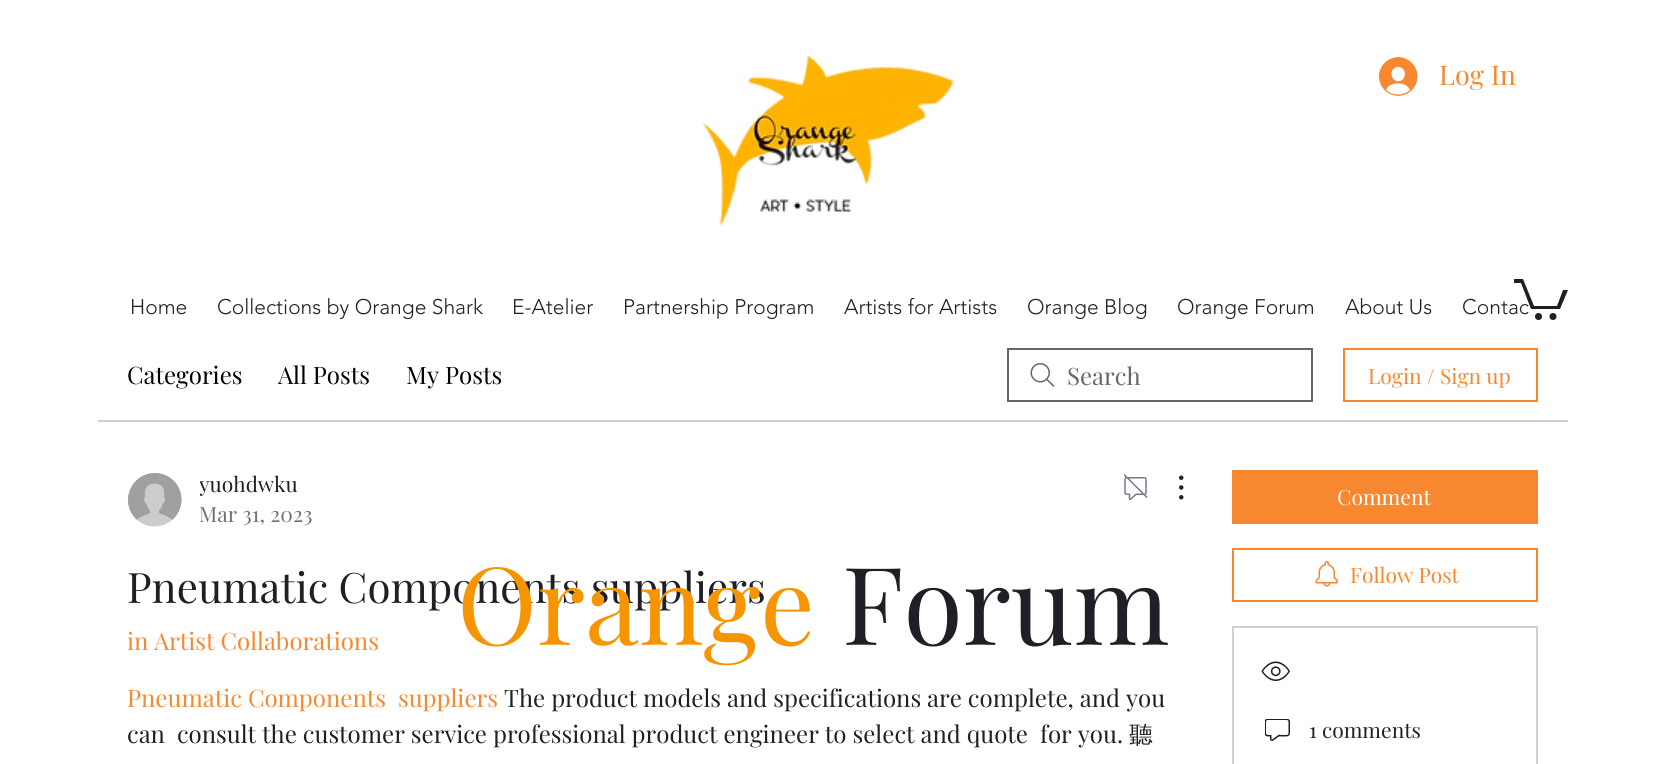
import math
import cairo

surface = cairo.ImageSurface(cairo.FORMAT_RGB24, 1663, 764)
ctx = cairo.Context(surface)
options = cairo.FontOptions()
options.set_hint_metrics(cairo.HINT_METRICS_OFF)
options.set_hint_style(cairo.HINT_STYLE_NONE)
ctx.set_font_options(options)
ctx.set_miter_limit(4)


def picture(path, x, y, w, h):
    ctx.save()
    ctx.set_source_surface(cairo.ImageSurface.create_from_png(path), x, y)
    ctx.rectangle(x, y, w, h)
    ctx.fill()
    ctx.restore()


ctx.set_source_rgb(1, 1, 1)
ctx.paint()
picture("img1.png", 702, 55, 253, 171)
picture("img2.png", 1379, 57, 39, 39)
ctx.select_font_face("Playfair Display")
ctx.set_font_size(27)
ctx.set_source_rgb(0.969, 0.533, 0.184)
ctx.move_to(1439, 85)
ctx.show_text("Log In")
ctx.select_font_face("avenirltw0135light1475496 Light")
ctx.set_font_size(21)
ctx.set_source_rgb(0.118, 0.125, 0.145)
ctx.move_to(130, 314)
ctx.show_text("Home")
ctx.move_to(217, 314)
ctx.show_text("Collections by Orange Shark")
ctx.move_to(512, 314)
ctx.show_text("E-Atelier")
ctx.move_to(623, 314)
ctx.show_text("Partnership Program")
ctx.move_to(844, 314)
ctx.show_text("Artists for Artists")
ctx.move_to(1027, 314)
ctx.show_text("Orange Blog")
ctx.move_to(1177, 314)
ctx.show_text("Orange Forum")
ctx.move_to(1345, 314)
ctx.show_text("About Us")
ctx.move_to(1462, 314)
ctx.show_text("Contac")
ctx.new_path()
ctx.move_to(1568, 290)
ctx.line_to(1560, 309)
ctx.line_to(1531, 309)
ctx.line_to(1521, 283)
ctx.line_to(1514, 283)
ctx.line_to(1514, 279)
ctx.line_to(1523, 279)
ctx.line_to(1534, 306)
ctx.line_to(1557, 306)
ctx.line_to(1563, 290)
ctx.fill()
ctx.arc(1553, 316.5, 3.5, 0, 2 * math.pi)
ctx.fill()
ctx.arc(1538.5, 316.5, 3.5, 0, 2 * math.pi)
ctx.fill()
ctx.set_source_rgb(0.824, 0.824, 0.827)
ctx.rectangle(98, 420, 1470, 2)
ctx.fill()
ctx.select_font_face("Playfair Display")
ctx.set_font_size(24)
ctx.set_source_rgb(0, 0, 0)
ctx.move_to(127, 384)
ctx.show_text("Categories")
ctx.move_to(278, 384)
ctx.show_text("All Posts")
ctx.move_to(406, 384)
ctx.show_text("My Posts")
picture("img3.png", 1030, 363, 25, 24)
ctx.rectangle(1008, 349, 304, 52)
ctx.set_source_rgb(0.4, 0.4, 0.4)
ctx.stroke()
ctx.move_to(1067, 385)
ctx.show_text("Search")
ctx.rectangle(1344, 349, 193, 52)
ctx.set_source_rgb(0.969, 0.533, 0.184)
ctx.stroke()
ctx.set_font_size(21)
ctx.move_to(1368, 384)
ctx.show_text("Login / Sign up")
picture("img4.png", 128, 473, 54, 54)
ctx.save()
ctx.rectangle(200, 470, 97, 30)
ctx.clip()
ctx.set_source_rgb(0.118, 0.125, 0.145)
ctx.move_to(199, 492)
ctx.show_text("yuohdwku")
ctx.restore()
ctx.set_source_rgb(0.435, 0.439, 0.451)
ctx.move_to(199, 522)
ctx.show_text("Mar 31, 2023")
picture("img5.png", 1124, 474, 24, 26)
picture("img6.png", 1179, 475, 5, 25)
ctx.set_font_size(42)
ctx.set_source_rgb(0.118, 0.125, 0.145)
ctx.move_to(127, 603)
ctx.show_text("Pneumatic Components suppliers")
ctx.save()
ctx.rectangle(128, 620, 252, 42)
ctx.clip()
ctx.set_font_size(24)
ctx.set_source_rgb(0.969, 0.533, 0.184)
ctx.move_to(127, 650)
ctx.show_text("in")
ctx.restore()
ctx.set_font_size(24)
ctx.set_source_rgb(0.969, 0.533, 0.184)
ctx.move_to(154, 650)
ctx.show_text("Artist Collaborations")
ctx.move_to(127, 707)
ctx.show_text("Pneumatic Components  suppliers")
ctx.set_source_rgb(0.118, 0.125, 0.145)
ctx.move_to(504, 707)
ctx.show_text("The product models and specifications are complete, and you")
ctx.move_to(127, 743)
ctx.show_text("can  consult the customer service professional product engineer to select and quote  for you.")
ctx.select_font_face("WenQuanYi Zen Hei Medium")
ctx.move_to(1129, 743)
ctx.show_text("聽")
ctx.set_source_rgb(0.969, 0.533, 0.184)
ctx.rectangle(1232, 470, 306, 54)
ctx.fill()
ctx.select_font_face("Playfair Display")
ctx.set_font_size(21)
ctx.set_source_rgb(1, 1, 1)
ctx.move_to(1337, 505)
ctx.show_text("Comment")
ctx.rectangle(1233, 549, 304, 52)
ctx.set_source_rgb(0.969, 0.533, 0.184)
ctx.stroke()
picture("img7.png", 1315, 561, 23, 26)
ctx.move_to(1350, 583)
ctx.show_text("Follow Post")
ctx.rectangle(1233, 627, 304, 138)
ctx.set_source_rgb(0.824, 0.824, 0.827)
ctx.stroke()
picture("img8.png", 1261, 661, 29, 20)
picture("img9.png", 1265, 719, 25, 22)
ctx.set_source_rgb(0.118, 0.125, 0.145)
ctx.move_to(1309, 738)
ctx.show_text("1 comments")
ctx.set_font_size(108)
ctx.set_source_rgb(0.961, 0.58, 0.008)
ctx.move_to(457, 645)
ctx.show_text("Orange")
ctx.set_source_rgb(0.118, 0.125, 0.145)
ctx.move_to(842, 645)
ctx.show_text("Forum")
surface.write_to_png("page.png")
